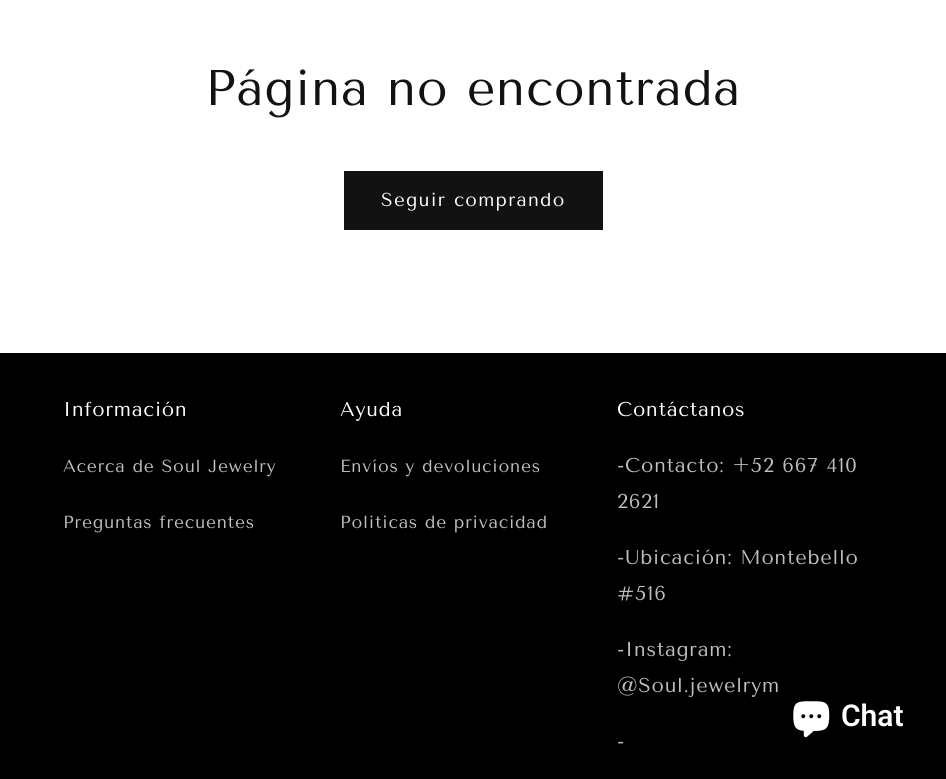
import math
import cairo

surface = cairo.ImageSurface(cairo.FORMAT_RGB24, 946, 779)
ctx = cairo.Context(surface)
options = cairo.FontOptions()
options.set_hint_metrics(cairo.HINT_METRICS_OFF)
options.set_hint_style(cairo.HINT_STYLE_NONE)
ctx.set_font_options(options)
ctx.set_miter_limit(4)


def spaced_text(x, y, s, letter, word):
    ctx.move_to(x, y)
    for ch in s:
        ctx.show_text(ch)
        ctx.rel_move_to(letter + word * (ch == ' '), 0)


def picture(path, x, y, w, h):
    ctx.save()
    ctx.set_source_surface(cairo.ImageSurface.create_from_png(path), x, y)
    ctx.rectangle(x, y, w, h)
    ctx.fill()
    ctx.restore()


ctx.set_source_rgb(1, 1, 1)
ctx.paint()
ctx.select_font_face("Tenor Sans")
ctx.set_font_size(50)
ctx.set_source_rgb(0.071, 0.071, 0.071)
spaced_text(205, 105, "Página no encontrada", 0.75, 0)
ctx.rectangle(344, 171, 259, 59)
ctx.fill()
ctx.set_font_size(18.75)
ctx.set_source_rgb(1, 1, 1)
spaced_text(381, 206, "Seguir comprando", 1.25, 0)
ctx.set_source_rgb(0, 0, 0)
ctx.rectangle(0, 353, 946, 426)
ctx.fill()
ctx.set_font_size(20)
ctx.set_source_rgb(1, 1, 1)
spaced_text(63, 416, "Información", 0.75, 0)
ctx.set_font_size(17.5)
ctx.set_source_rgb(0.749, 0.749, 0.749)
spaced_text(63, 472, "Acerca de Soul Jewelry", 0.75, 0)
spaced_text(63, 528, "Preguntas frecuentes", 0.75, 0)
ctx.set_font_size(20)
ctx.set_source_rgb(1, 1, 1)
spaced_text(340, 416, "Ayuda", 0.75, 0)
ctx.set_font_size(17.5)
ctx.set_source_rgb(0.749, 0.749, 0.749)
spaced_text(340, 472, "Envíos y devoluciones", 0.75, 0)
spaced_text(340, 528, "Politicas de privacidad", 0.75, 0)
ctx.set_font_size(20)
ctx.set_source_rgb(1, 1, 1)
spaced_text(617, 416, "Contáctanos", 0.75, 0)
ctx.set_source_rgb(0.749, 0.749, 0.749)
spaced_text(617, 472, "-Contacto: +52 667 410", 0.75, 0)
spaced_text(617, 508, "2621", 0.75, 0)
spaced_text(617, 564, "-Ubicación: Montebello", 0.75, 0)
spaced_text(617, 600, "#516", 0.75, 0)
spaced_text(617, 656, "-Instagram:", 0.75, 0)
spaced_text(617, 692, "@Soul.jewelrym", 0.75, 0)
spaced_text(617, 748, "-", 0.75, 0)
picture("img1.png", 793, 701, 37, 37)
ctx.select_font_face("Roboto SemiBold")
ctx.set_font_size(30)
ctx.set_source_rgb(1, 1, 1)
ctx.move_to(841, 726)
ctx.show_text("Chat")
surface.write_to_png("page.png")
